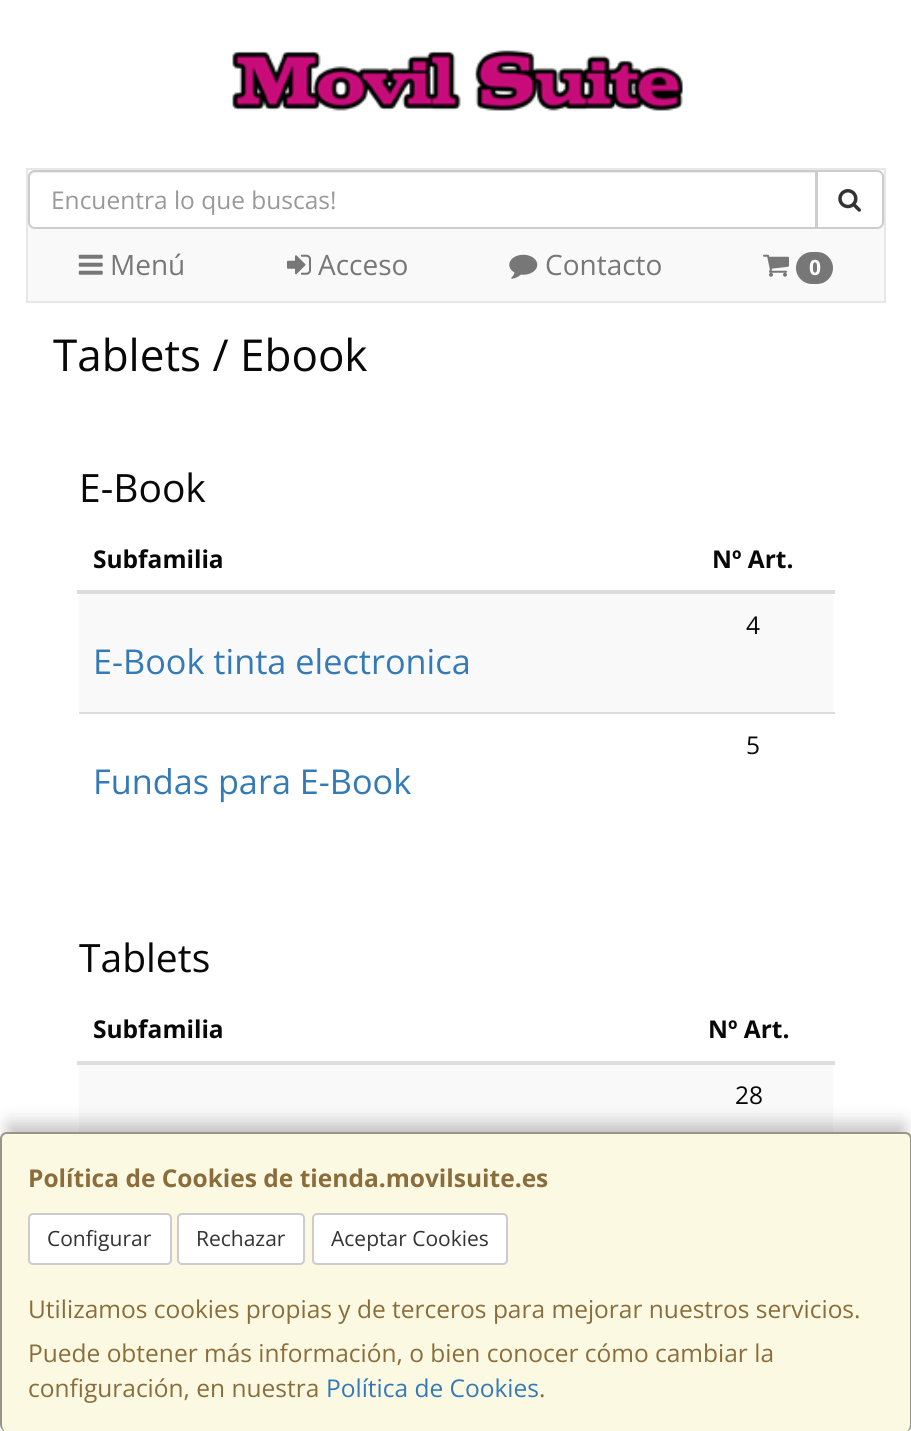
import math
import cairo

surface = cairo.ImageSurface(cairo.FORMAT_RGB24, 911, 1431)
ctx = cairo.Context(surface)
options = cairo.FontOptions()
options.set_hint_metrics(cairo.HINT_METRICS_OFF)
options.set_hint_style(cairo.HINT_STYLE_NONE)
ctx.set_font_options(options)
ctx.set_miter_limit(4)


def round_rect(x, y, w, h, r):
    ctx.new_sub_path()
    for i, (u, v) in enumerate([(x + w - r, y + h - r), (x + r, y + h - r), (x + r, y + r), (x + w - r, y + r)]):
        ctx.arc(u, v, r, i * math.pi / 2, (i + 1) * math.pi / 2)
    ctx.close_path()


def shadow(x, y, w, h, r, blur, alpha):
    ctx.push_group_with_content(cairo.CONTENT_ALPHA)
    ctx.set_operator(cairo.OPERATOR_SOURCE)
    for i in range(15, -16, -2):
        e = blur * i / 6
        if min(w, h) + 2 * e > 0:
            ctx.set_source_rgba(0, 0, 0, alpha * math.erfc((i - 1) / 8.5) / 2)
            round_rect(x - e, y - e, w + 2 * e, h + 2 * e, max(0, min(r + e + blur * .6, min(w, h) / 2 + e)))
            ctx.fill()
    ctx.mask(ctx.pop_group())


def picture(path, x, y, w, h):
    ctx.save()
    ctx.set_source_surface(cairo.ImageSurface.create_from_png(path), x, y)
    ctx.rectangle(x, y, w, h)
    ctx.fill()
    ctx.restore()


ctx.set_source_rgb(1, 1, 1)
ctx.paint()
picture("img1.png", 232, 50, 451, 61)
ctx.set_source_rgb(0.973, 0.973, 0.973)
ctx.rectangle(27, 169, 858, 133)
ctx.fill_preserve()
ctx.set_source_rgb(0.906, 0.906, 0.906)
ctx.stroke()
ctx.set_source_rgb(1, 1, 1)
ctx.new_path()
ctx.move_to(817, 171)
ctx.line_to(877, 171)
ctx.curve_to(880.5, 171, 883, 173.5, 883, 177)
ctx.line_to(883, 222)
ctx.curve_to(883, 225.5, 880.5, 228, 877, 228)
ctx.line_to(817, 228)
ctx.close_path()
ctx.fill_preserve()
ctx.set_source_rgb(0.8, 0.8, 0.8)
ctx.stroke()
ctx.set_source_rgb(1, 1, 1)
ctx.new_path()
ctx.move_to(35, 170)
ctx.line_to(817, 170)
ctx.line_to(817, 229)
ctx.line_to(35, 229)
ctx.curve_to(31, 229, 28, 226, 28, 222)
ctx.line_to(28, 177)
ctx.curve_to(28, 173, 31, 170, 35, 170)
ctx.close_path()
ctx.fill()
ctx.set_source_rgb(0.925, 0.925, 0.925)
ctx.new_path()
ctx.move_to(35, 173)
ctx.line_to(816, 173)
ctx.line_to(816, 172)
ctx.line_to(35, 172)
ctx.curve_to(32, 172, 30, 174, 30, 177)
ctx.line_to(30, 178)
ctx.curve_to(30, 176, 32, 173, 35, 173)
ctx.close_path()
ctx.fill()
ctx.new_path()
ctx.move_to(35, 171)
ctx.line_to(816, 171)
ctx.line_to(816, 228)
ctx.line_to(35, 228)
ctx.curve_to(31.5, 228, 29, 225.5, 29, 222)
ctx.line_to(29, 177)
ctx.curve_to(29, 173.5, 31.5, 171, 35, 171)
ctx.close_path()
ctx.set_source_rgb(0.8, 0.8, 0.8)
ctx.stroke()
ctx.select_font_face("Open Sans")
ctx.set_font_size(24.5)
ctx.set_source_rgb(0.6, 0.6, 0.6)
ctx.move_to(51, 209)
ctx.show_text("Encuentra lo que buscas!")
picture("img2.png", 838, 189, 23, 23)
picture("img3.png", 78, 254, 25, 21)
ctx.set_font_size(28)
ctx.set_source_rgb(0.467, 0.467, 0.467)
ctx.move_to(110, 275)
ctx.show_text("Menú")
picture("img4.png", 287, 254, 24, 21)
ctx.move_to(318, 275)
ctx.show_text("Acceso")
picture("img5.png", 509, 254, 29, 25)
ctx.move_to(545, 275)
ctx.show_text("Contacto")
picture("img6.png", 763, 254, 26, 23)
round_rect(796, 252, 37, 32, 16)
ctx.fill()
ctx.select_font_face("Open Sans", cairo.FONT_SLANT_NORMAL, cairo.FONT_WEIGHT_BOLD)
ctx.set_font_size(21)
ctx.set_source_rgb(1, 1, 1)
ctx.move_to(809, 275)
ctx.show_text("0")
ctx.select_font_face("Open Sans")
ctx.set_font_size(44)
ctx.set_source_rgb(0.039, 0.035, 0.035)
ctx.move_to(53, 371)
ctx.show_text("Tablets / Ebook")
ctx.set_font_size(39)
ctx.move_to(79, 502)
ctx.show_text("E-Book")
ctx.select_font_face("Open Sans", cairo.FONT_SLANT_NORMAL, cairo.FONT_WEIGHT_BOLD)
ctx.set_font_size(24.5)
ctx.move_to(93, 568)
ctx.show_text("Subfamilia")
ctx.set_source_rgb(0.867, 0.867, 0.867)
ctx.rectangle(77, 590, 758, 4)
ctx.fill()
ctx.set_source_rgb(0.039, 0.035, 0.035)
ctx.move_to(712, 568)
ctx.show_text("Nº Art.")
ctx.set_source_rgb(0.976, 0.976, 0.976)
ctx.rectangle(79, 594, 754, 118)
ctx.fill()
ctx.select_font_face("Open Sans")
ctx.set_source_rgb(0.039, 0.035, 0.035)
ctx.move_to(746, 634)
ctx.show_text("4")
ctx.set_font_size(34.25)
ctx.set_source_rgb(0.2, 0.478, 0.718)
ctx.move_to(93, 674)
ctx.show_text("E-Book tinta electronica")
ctx.set_source_rgb(0.867, 0.867, 0.867)
ctx.rectangle(79, 712, 756, 2)
ctx.fill()
ctx.set_font_size(24.5)
ctx.set_source_rgb(0.039, 0.035, 0.035)
ctx.move_to(746, 754)
ctx.show_text("5")
ctx.set_font_size(34.25)
ctx.set_source_rgb(0.2, 0.478, 0.718)
ctx.move_to(93, 794)
ctx.show_text("Fundas para E-Book")
ctx.set_font_size(39)
ctx.set_source_rgb(0.039, 0.035, 0.035)
ctx.move_to(79, 972)
ctx.show_text("Tablets")
ctx.select_font_face("Open Sans", cairo.FONT_SLANT_NORMAL, cairo.FONT_WEIGHT_BOLD)
ctx.set_font_size(24.5)
ctx.move_to(93, 1038)
ctx.show_text("Subfamilia")
ctx.set_source_rgb(0.867, 0.867, 0.867)
ctx.rectangle(77, 1061, 758, 4)
ctx.fill()
ctx.set_source_rgb(0.039, 0.035, 0.035)
ctx.move_to(708, 1038)
ctx.show_text("Nº Art.")
ctx.set_source_rgb(0.976, 0.976, 0.976)
ctx.rectangle(79, 1065, 754, 67)
ctx.fill()
ctx.select_font_face("Open Sans")
ctx.set_source_rgb(0.039, 0.035, 0.035)
ctx.move_to(735, 1104)
ctx.show_text("28")
ctx.set_source_rgb(0, 0, 0)
shadow(9, 1124, 894, 281, 0, 9, 0.25)
ctx.set_source_rgb(0.988, 0.973, 0.89)
round_rect(0, 1132, 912, 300, 7)
ctx.fill()
ctx.set_source_rgba(0, 0, 0, 0.4)
ctx.set_fill_rule(cairo.FILL_RULE_EVEN_ODD)
ctx.new_path()
ctx.move_to(7, 1132)
ctx.line_to(905, 1132)
ctx.curve_to(909, 1132, 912, 1135, 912, 1139)
ctx.line_to(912, 1424)
ctx.curve_to(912, 1428, 909, 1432, 905, 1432)
ctx.line_to(7, 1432)
ctx.curve_to(3, 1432, 0, 1428, 0, 1424)
ctx.line_to(0, 1139)
ctx.curve_to(0, 1135, 3, 1132, 7, 1132)
ctx.close_path()
ctx.move_to(7, 1134)
ctx.line_to(905, 1134)
ctx.curve_to(908, 1134, 910, 1136, 910, 1139)
ctx.line_to(910, 1424)
ctx.curve_to(910, 1428, 908, 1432, 905, 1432)
ctx.line_to(7, 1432)
ctx.curve_to(4, 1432, 2, 1428, 2, 1424)
ctx.line_to(2, 1139)
ctx.curve_to(2, 1136, 4, 1134, 7, 1134)
ctx.close_path()
ctx.fill()
ctx.select_font_face("Open Sans", cairo.FONT_SLANT_NORMAL, cairo.FONT_WEIGHT_BOLD)
ctx.set_source_rgb(0.541, 0.427, 0.231)
ctx.move_to(28, 1187)
ctx.show_text("Política de Cookies de tienda.movilsuite.es")
ctx.set_source_rgb(1, 1, 1)
round_rect(29, 1214, 142, 50, 4)
ctx.fill_preserve()
ctx.set_source_rgb(0.8, 0.8, 0.8)
ctx.stroke()
ctx.select_font_face("Open Sans")
ctx.set_font_size(21)
ctx.set_source_rgb(0.2, 0.2, 0.2)
ctx.move_to(47, 1246)
ctx.show_text("Configurar")
ctx.set_source_rgb(1, 1, 1)
round_rect(178, 1214, 126, 50, 4)
ctx.fill_preserve()
ctx.set_source_rgb(0.8, 0.8, 0.8)
ctx.stroke()
ctx.set_source_rgb(0.2, 0.2, 0.2)
ctx.move_to(196, 1246)
ctx.show_text("Rechazar")
ctx.set_source_rgb(1, 1, 1)
round_rect(313, 1214, 194, 50, 4)
ctx.fill_preserve()
ctx.set_source_rgb(0.8, 0.8, 0.8)
ctx.stroke()
ctx.set_source_rgb(0.2, 0.2, 0.2)
ctx.move_to(331, 1246)
ctx.show_text("Aceptar Cookies")
ctx.set_font_size(24.5)
ctx.set_source_rgb(0.541, 0.427, 0.231)
ctx.move_to(28, 1318)
ctx.show_text("Utilizamos cookies propias y de terceros para mejorar nuestros servicios.")
ctx.move_to(28, 1362)
ctx.show_text("Puede obtener más información, o bien conocer cómo cambiar la")
ctx.move_to(28, 1397)
ctx.show_text("configuración, en nuestra")
ctx.set_source_rgb(0.2, 0.478, 0.718)
ctx.move_to(326, 1397)
ctx.show_text("Política de Cookies")
ctx.set_source_rgb(0.541, 0.427, 0.231)
ctx.move_to(539, 1397)
ctx.show_text(".")
surface.write_to_png("page.png")
